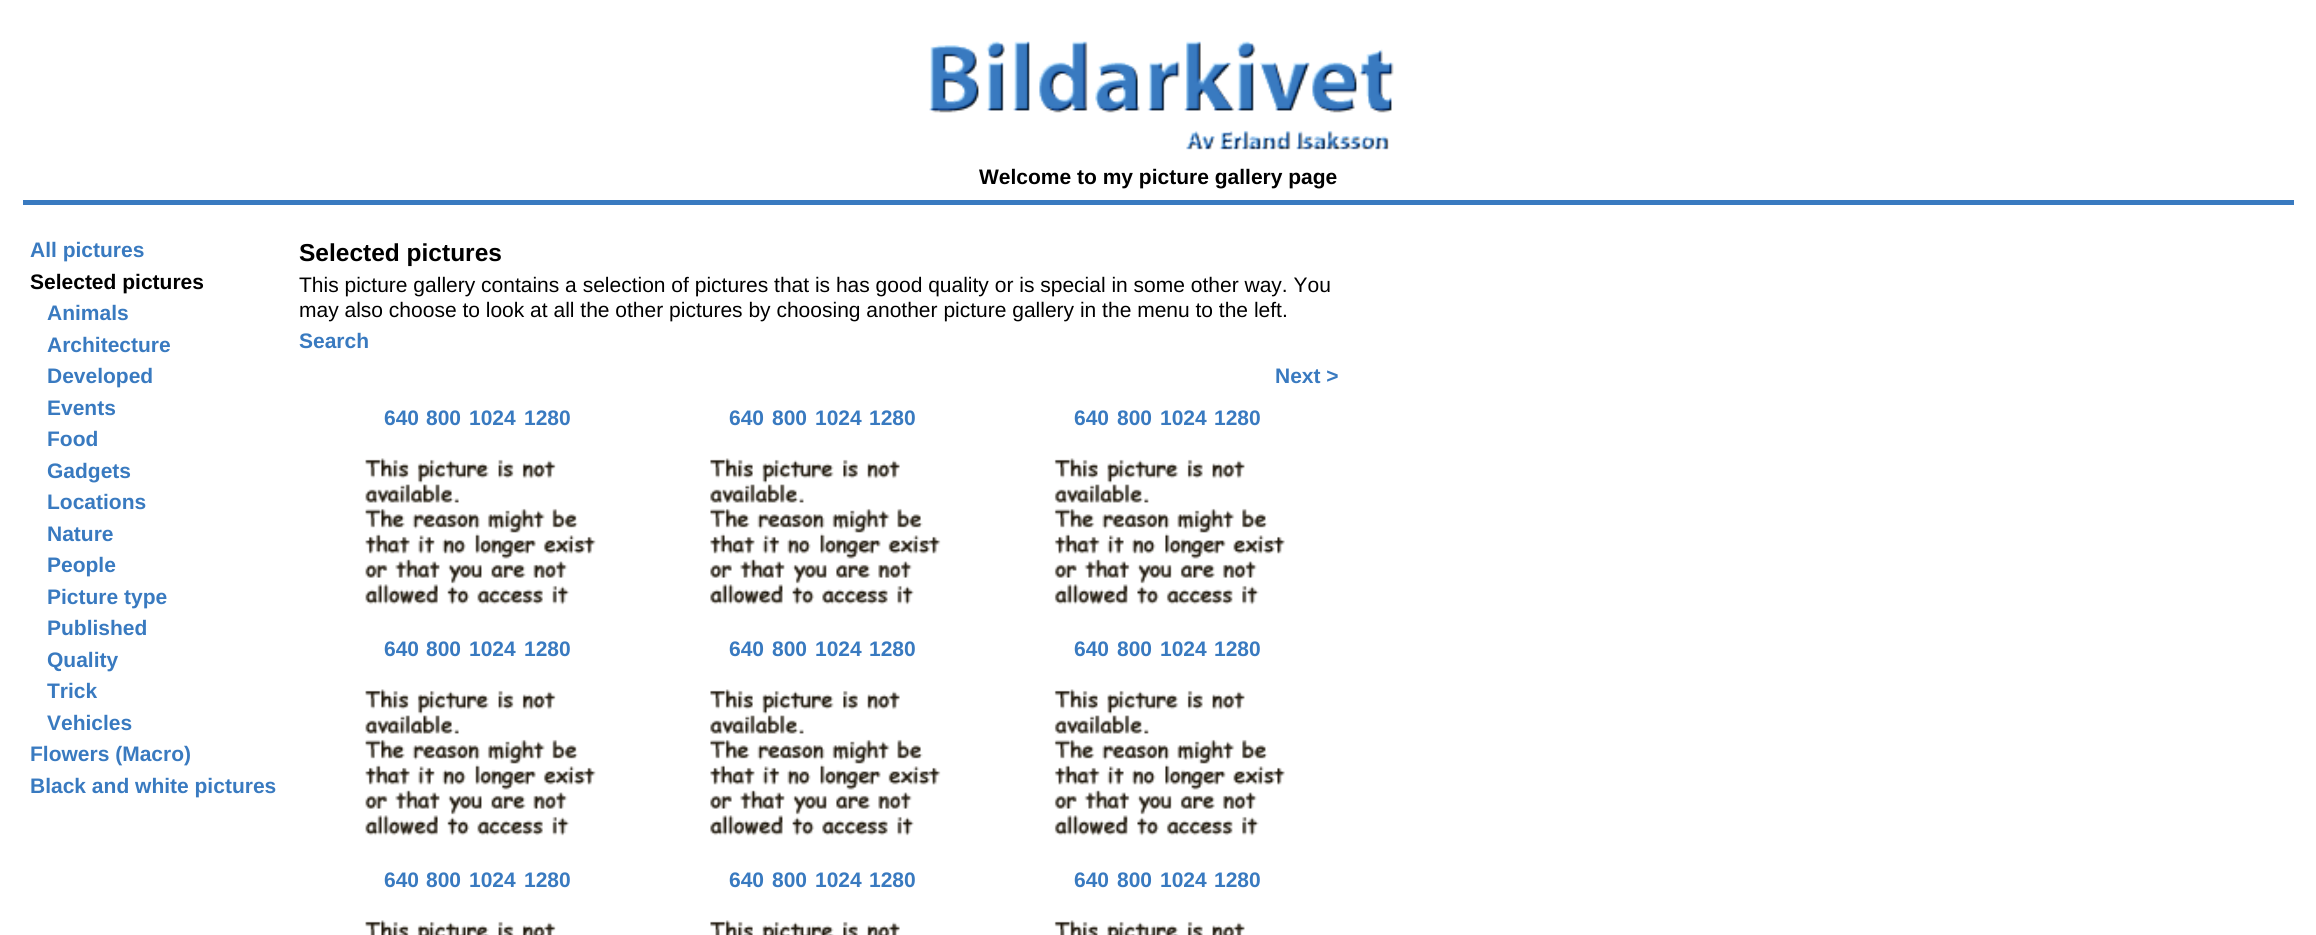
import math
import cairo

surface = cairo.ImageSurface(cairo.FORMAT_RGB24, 2316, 935)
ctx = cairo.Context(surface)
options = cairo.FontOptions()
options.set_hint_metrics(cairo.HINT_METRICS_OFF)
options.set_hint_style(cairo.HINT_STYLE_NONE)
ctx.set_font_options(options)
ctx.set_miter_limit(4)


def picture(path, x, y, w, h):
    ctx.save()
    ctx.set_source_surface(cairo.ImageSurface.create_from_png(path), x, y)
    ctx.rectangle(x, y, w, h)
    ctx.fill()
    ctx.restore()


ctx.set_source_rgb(1, 1, 1)
ctx.paint()
picture("img1.png", 929, 41, 465, 109)
ctx.select_font_face("Liberation Sans", cairo.FONT_SLANT_NORMAL, cairo.FONT_WEIGHT_BOLD)
ctx.set_font_size(21)
ctx.set_source_rgb(0, 0, 0)
ctx.move_to(979, 184)
ctx.show_text("Welcome to my picture gallery page")
ctx.set_source_rgb(0.224, 0.478, 0.753)
ctx.rectangle(23, 200, 2271, 5)
ctx.fill()
ctx.move_to(30, 257)
ctx.show_text("All pictures")
ctx.set_source_rgb(0, 0, 0)
ctx.move_to(30, 289)
ctx.show_text("Selected pictures")
ctx.set_source_rgb(0.224, 0.478, 0.753)
ctx.move_to(47, 320)
ctx.show_text("Animals")
ctx.move_to(47, 352)
ctx.show_text("Architecture")
ctx.move_to(47, 383)
ctx.show_text("Developed")
ctx.move_to(47, 415)
ctx.show_text("Events")
ctx.move_to(47, 446)
ctx.show_text("Food")
ctx.move_to(47, 478)
ctx.show_text("Gadgets")
ctx.move_to(47, 509)
ctx.show_text("Locations")
ctx.move_to(47, 541)
ctx.show_text("Nature")
ctx.move_to(47, 572)
ctx.show_text("People")
ctx.move_to(47, 604)
ctx.show_text("Picture type")
ctx.move_to(47, 635)
ctx.show_text("Published")
ctx.move_to(47, 667)
ctx.show_text("Quality")
ctx.move_to(47, 698)
ctx.show_text("Trick")
ctx.move_to(47, 730)
ctx.show_text("Vehicles")
ctx.move_to(30, 761)
ctx.show_text("Flowers (Macro)")
ctx.move_to(30, 793)
ctx.show_text("Black and white pictures")
ctx.set_font_size(24.5)
ctx.set_source_rgb(0, 0, 0)
ctx.move_to(299, 261)
ctx.show_text("Selected pictures")
ctx.select_font_face("Liberation Sans")
ctx.set_font_size(21)
ctx.move_to(299, 292)
ctx.show_text("This picture gallery contains a selection of pictures that is has good quality or is special in some other way. You")
ctx.move_to(299, 317)
ctx.show_text("may also choose to look at all the other pictures by choosing another picture gallery in the menu to the left.")
ctx.select_font_face("Liberation Sans", cairo.FONT_SLANT_NORMAL, cairo.FONT_WEIGHT_BOLD)
ctx.set_source_rgb(0.224, 0.478, 0.753)
ctx.move_to(299, 348)
ctx.show_text("Search")
ctx.move_to(1275, 383)
ctx.show_text("Next >")
ctx.move_to(384, 425)
ctx.show_text("640")
ctx.move_to(426, 425)
ctx.show_text("800")
ctx.move_to(469, 425)
ctx.show_text("1024")
ctx.move_to(524, 425)
ctx.show_text("1280")
picture("img2.png", 365, 458, 231, 147)
ctx.move_to(729, 425)
ctx.show_text("640")
ctx.move_to(772, 425)
ctx.show_text("800")
ctx.move_to(815, 425)
ctx.show_text("1024")
ctx.move_to(869, 425)
ctx.show_text("1280")
picture("img3.png", 710, 458, 231, 147)
ctx.move_to(1074, 425)
ctx.show_text("640")
ctx.move_to(1117, 425)
ctx.show_text("800")
ctx.move_to(1160, 425)
ctx.show_text("1024")
ctx.move_to(1214, 425)
ctx.show_text("1280")
picture("img4.png", 1054, 458, 231, 147)
ctx.move_to(384, 656)
ctx.show_text("640")
ctx.move_to(426, 656)
ctx.show_text("800")
ctx.move_to(469, 656)
ctx.show_text("1024")
ctx.move_to(524, 656)
ctx.show_text("1280")
picture("img2.png", 365, 689, 231, 147)
ctx.move_to(729, 656)
ctx.show_text("640")
ctx.move_to(772, 656)
ctx.show_text("800")
ctx.move_to(815, 656)
ctx.show_text("1024")
ctx.move_to(869, 656)
ctx.show_text("1280")
picture("img3.png", 710, 689, 231, 147)
ctx.move_to(1074, 656)
ctx.show_text("640")
ctx.move_to(1117, 656)
ctx.show_text("800")
ctx.move_to(1160, 656)
ctx.show_text("1024")
ctx.move_to(1214, 656)
ctx.show_text("1280")
picture("img4.png", 1054, 689, 231, 147)
ctx.move_to(384, 887)
ctx.show_text("640")
ctx.move_to(426, 887)
ctx.show_text("800")
ctx.move_to(469, 887)
ctx.show_text("1024")
ctx.move_to(524, 887)
ctx.show_text("1280")
picture("img5.png", 365, 920, 191, 15)
ctx.move_to(729, 887)
ctx.show_text("640")
ctx.move_to(772, 887)
ctx.show_text("800")
ctx.move_to(815, 887)
ctx.show_text("1024")
ctx.move_to(869, 887)
ctx.show_text("1280")
picture("img6.png", 710, 920, 190, 15)
ctx.move_to(1074, 887)
ctx.show_text("640")
ctx.move_to(1117, 887)
ctx.show_text("800")
ctx.move_to(1160, 887)
ctx.show_text("1024")
ctx.move_to(1214, 887)
ctx.show_text("1280")
picture("img7.png", 1054, 920, 191, 15)
surface.write_to_png("page.png")
